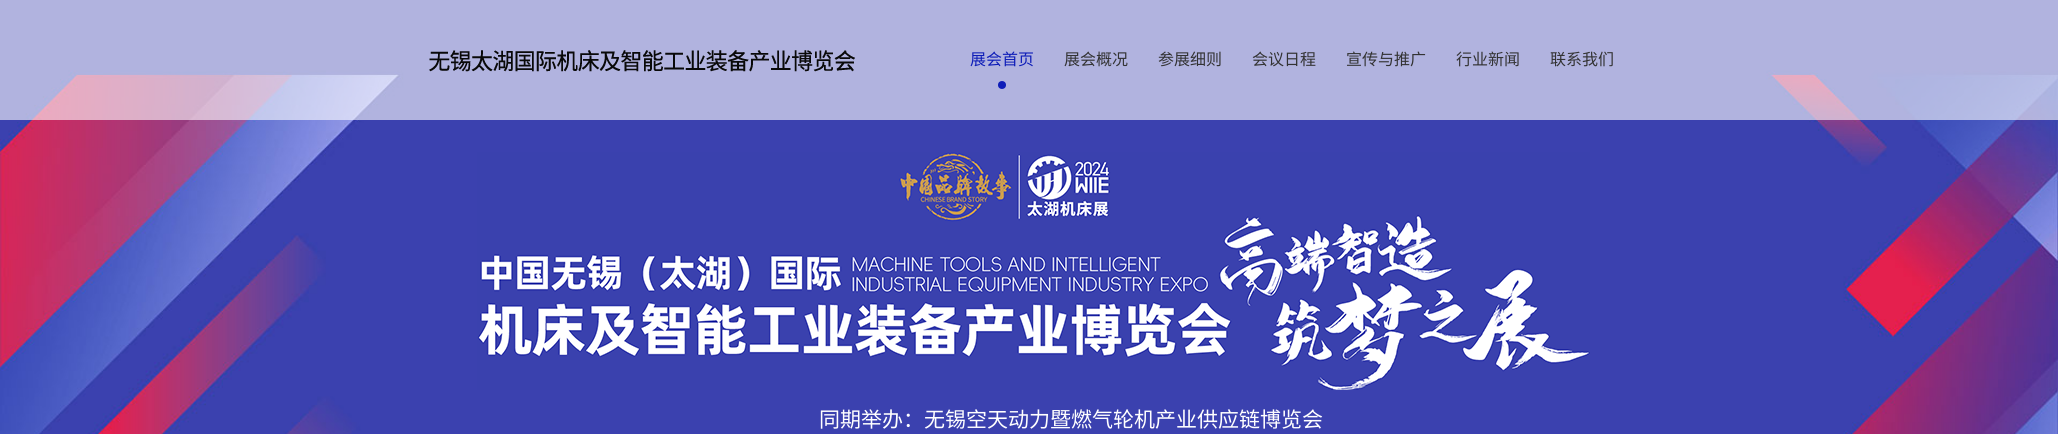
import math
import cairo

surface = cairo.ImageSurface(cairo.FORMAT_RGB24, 2058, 434)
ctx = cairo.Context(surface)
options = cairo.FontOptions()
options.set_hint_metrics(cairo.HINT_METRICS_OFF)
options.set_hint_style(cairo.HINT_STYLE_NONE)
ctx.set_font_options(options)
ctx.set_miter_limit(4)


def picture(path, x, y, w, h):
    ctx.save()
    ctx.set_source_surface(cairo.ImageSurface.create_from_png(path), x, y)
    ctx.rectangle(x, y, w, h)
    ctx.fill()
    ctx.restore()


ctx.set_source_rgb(1, 1, 1)
ctx.paint()
picture("img1.png", 0, 0, 2058, 434)
ctx.set_source_rgba(1, 1, 1, 0.6)
ctx.rectangle(0, 0, 2058, 120)
ctx.fill()
picture("img2.png", 429, 50, 426, 22)
ctx.select_font_face("Noto Sans CJK SC")
ctx.set_font_size(16)
ctx.set_source_rgb(0.055, 0.114, 0.722)
ctx.move_to(970, 65)
ctx.show_text("展会首页")
ctx.new_path()
ctx.arc(1002, 85, 4, 0, 2 * math.pi)
ctx.fill()
ctx.set_source_rgb(0.2, 0.2, 0.2)
ctx.move_to(1064, 65)
ctx.show_text("展会概况")
ctx.move_to(1158, 65)
ctx.show_text("参展细则")
ctx.move_to(1252, 65)
ctx.show_text("会议日程")
ctx.move_to(1346, 65)
ctx.show_text("宣传与推广")
ctx.move_to(1456, 65)
ctx.show_text("行业新闻")
ctx.move_to(1550, 65)
ctx.show_text("联系我们")
picture("img3.png", 477, 152, 1113, 238)
ctx.set_font_size(21)
ctx.set_source_rgb(1, 1, 1)
ctx.move_to(819, 427)
ctx.show_text("同期举办：无锡空天动力暨燃气轮机产业供应链博览会")
surface.write_to_png("page.png")
